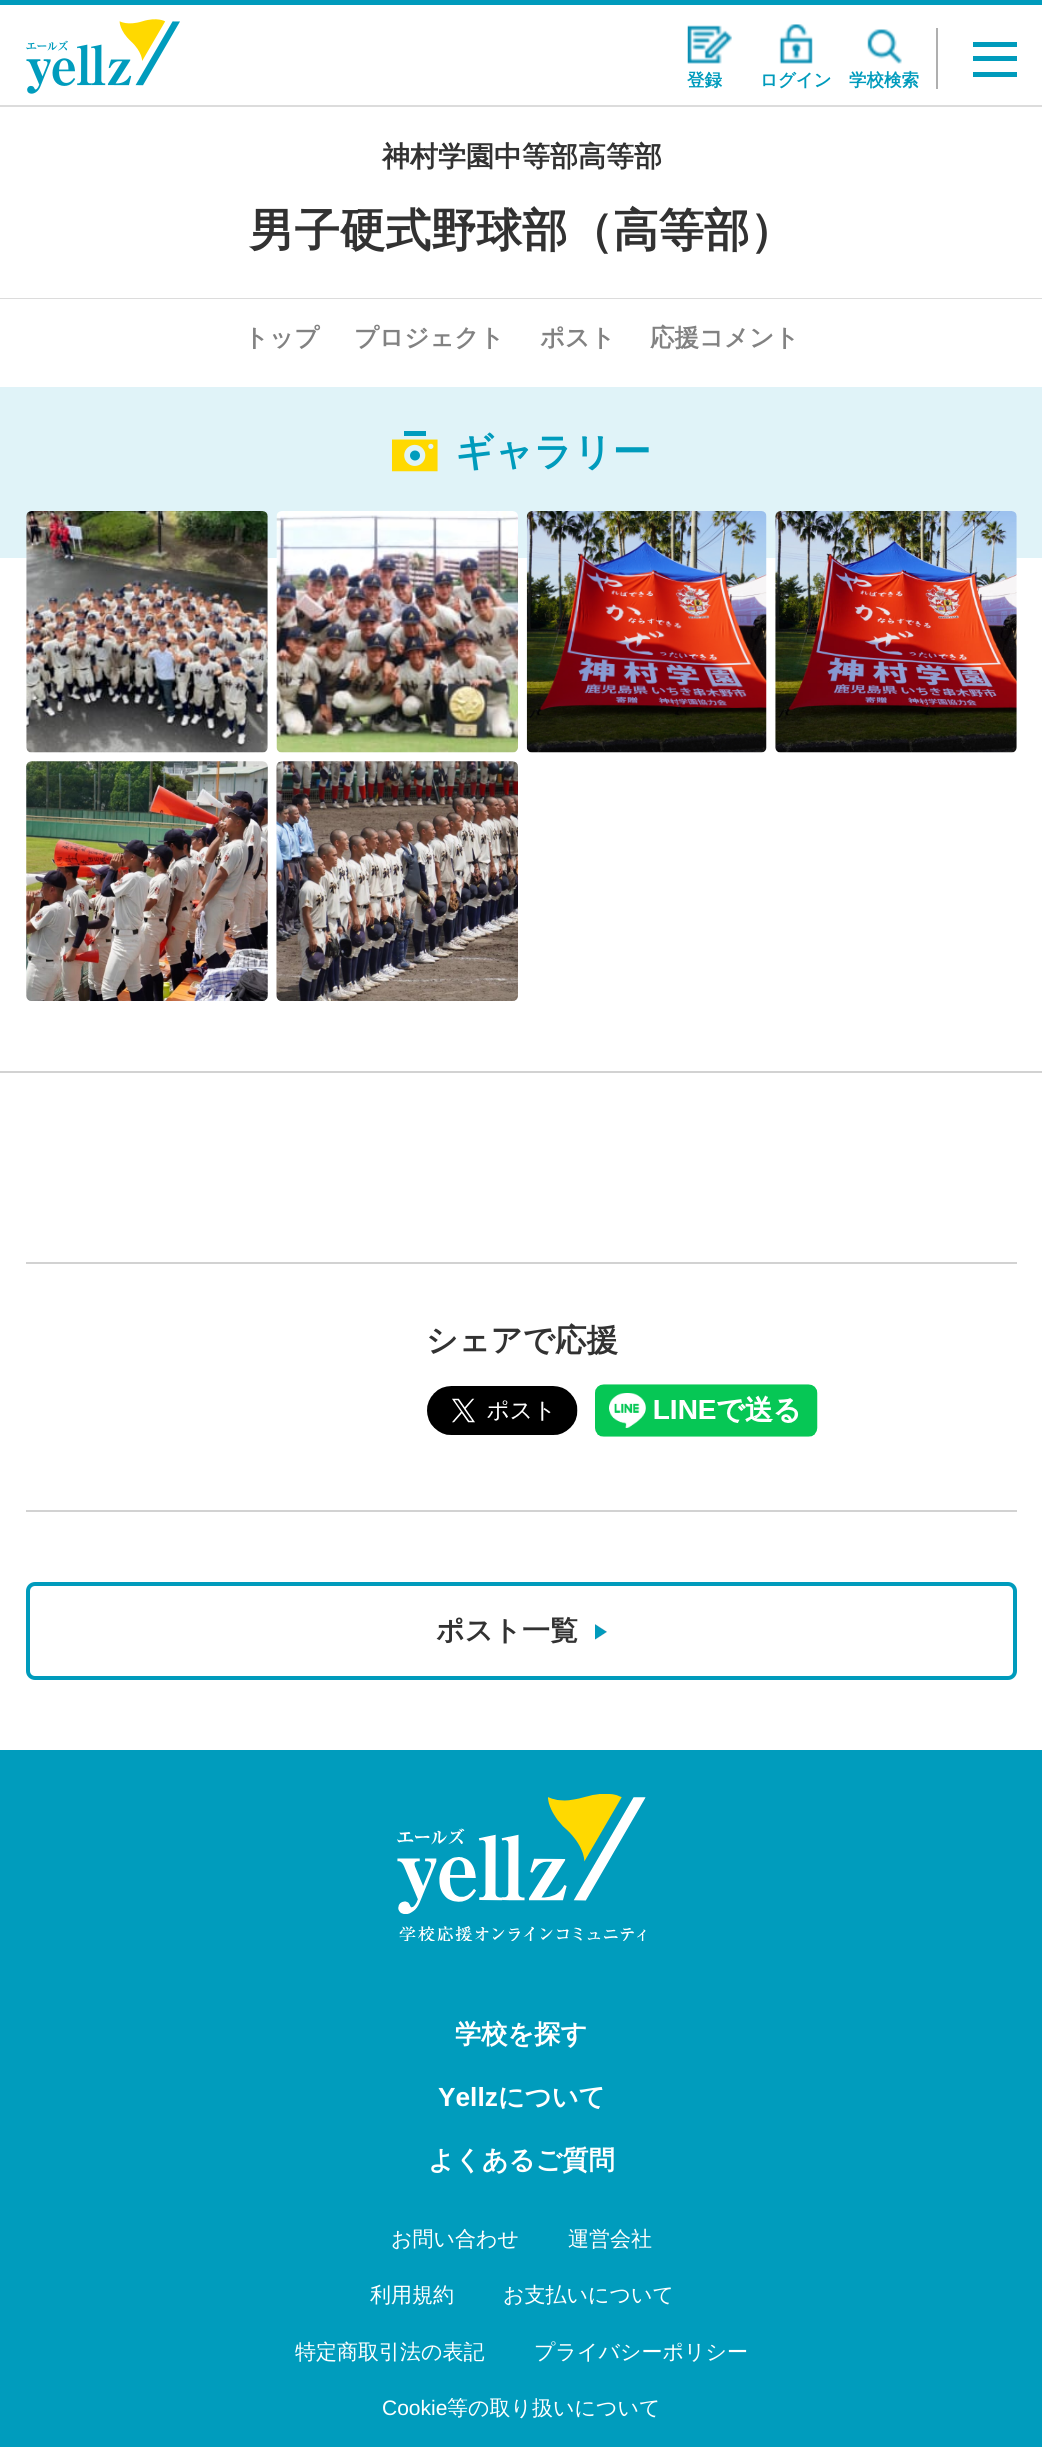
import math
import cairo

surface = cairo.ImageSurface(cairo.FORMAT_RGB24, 1042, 2447)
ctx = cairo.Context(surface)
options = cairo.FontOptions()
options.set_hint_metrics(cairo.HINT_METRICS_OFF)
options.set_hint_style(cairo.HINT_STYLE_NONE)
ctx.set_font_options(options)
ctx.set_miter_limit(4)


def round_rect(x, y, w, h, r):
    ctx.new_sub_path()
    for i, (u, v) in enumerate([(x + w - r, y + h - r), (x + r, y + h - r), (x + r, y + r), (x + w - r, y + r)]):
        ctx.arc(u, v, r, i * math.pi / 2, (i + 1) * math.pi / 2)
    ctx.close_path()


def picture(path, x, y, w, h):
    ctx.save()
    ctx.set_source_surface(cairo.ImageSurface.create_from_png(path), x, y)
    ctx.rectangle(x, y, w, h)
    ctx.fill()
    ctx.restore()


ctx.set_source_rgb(1, 1, 1)
ctx.paint()
ctx.set_source_rgb(0, 0.608, 0.737)
ctx.rectangle(0, 0, 1042, 5)
ctx.fill()
ctx.set_source_rgb(0.863, 0.863, 0.863)
ctx.rectangle(0, 105, 1042, 2)
ctx.fill()
picture("img1.png", 26, 19, 154, 75)
ctx.set_source_rgb(0, 0.608, 0.737)
ctx.rectangle(973, 42, 44, 5)
ctx.fill()
ctx.rectangle(973, 56, 44, 5)
ctx.fill()
ctx.rectangle(973, 72, 44, 5)
ctx.fill()
picture("img2.png", 687, 25, 45, 39)
ctx.select_font_face("WenQuanYi Zen Hei", cairo.FONT_SLANT_NORMAL, cairo.FONT_WEIGHT_BOLD)
ctx.set_font_size(17.5)
ctx.move_to(687, 86)
ctx.show_text("登録")
picture("img3.png", 779, 24, 34, 40)
ctx.move_to(760, 86)
ctx.show_text("ログイン")
picture("img4.png", 867, 29, 35, 35)
ctx.move_to(849, 86)
ctx.show_text("学校検索")
ctx.set_source_rgb(0.686, 0.686, 0.686)
ctx.rectangle(936, 28, 2, 61)
ctx.fill()
ctx.set_source_rgb(0.863, 0.863, 0.863)
ctx.rectangle(0, 298, 1042, 1)
ctx.fill()
ctx.set_font_size(28)
ctx.set_source_rgb(0.196, 0.196, 0.196)
ctx.move_to(382, 166)
ctx.show_text("神村学園中等部高等部")
ctx.set_font_size(45.5)
ctx.move_to(249, 246)
ctx.show_text("男子硬式野球部（高等部）")
ctx.set_font_size(24.5)
ctx.set_source_rgb(0.51, 0.51, 0.51)
ctx.move_to(244, 346)
ctx.show_text("トップ")
ctx.move_to(354, 346)
ctx.show_text("プロジェクト")
ctx.move_to(540, 346)
ctx.show_text("ポスト")
ctx.move_to(650, 346)
ctx.show_text("応援コメント")
ctx.set_source_rgb(0.878, 0.953, 0.969)
ctx.rectangle(0, 387, 1042, 171)
ctx.fill()
picture("img5.png", 392, 431, 46, 41)
ctx.set_font_size(38.5)
ctx.set_source_rgb(0, 0.608, 0.737)
ctx.move_to(455, 465)
ctx.show_text("ギャラリー")
picture("img6.png", 26, 511, 242, 242)
picture("img7.png", 276, 511, 242, 242)
picture("img8.png", 526, 511, 241, 242)
picture("img9.png", 775, 511, 242, 242)
picture("img10.png", 26, 761, 242, 240)
picture("img11.png", 276, 761, 242, 240)
ctx.set_source_rgb(0.824, 0.824, 0.824)
ctx.rectangle(0, 1071, 1042, 2)
ctx.fill()
ctx.rectangle(26, 1262, 991, 2)
ctx.fill()
ctx.rectangle(26, 1510, 991, 2)
ctx.fill()
ctx.set_font_size(31.5)
ctx.set_source_rgb(0.196, 0.196, 0.196)
ctx.move_to(426, 1351)
ctx.show_text("シェアで応援")
picture("img12.png", 427, 1386, 151, 49)
picture("img13.png", 595, 1384, 223, 53)
round_rect(28, 1584, 987, 94, 7)
ctx.set_source_rgb(0, 0.608, 0.737)
ctx.set_line_width(4)
ctx.stroke()
ctx.set_font_size(28)
ctx.set_source_rgb(0.196, 0.196, 0.196)
ctx.move_to(436, 1640)
ctx.show_text("ポスト一覧")
picture("img14.png", 595, 1624, 12, 16)
ctx.set_source_rgb(0, 0.612, 0.741)
ctx.rectangle(0, 1750, 1042, 697)
ctx.fill()
picture("img15.png", 397, 1794, 249, 147)
ctx.set_font_size(26.25)
ctx.set_source_rgb(1, 1, 1)
ctx.move_to(455, 2043)
ctx.show_text("学校を探す")
ctx.select_font_face("Liberation Sans", cairo.FONT_SLANT_NORMAL, cairo.FONT_WEIGHT_BOLD)
ctx.move_to(438, 2106)
ctx.show_text("Yellz")
ctx.select_font_face("WenQuanYi Zen Hei", cairo.FONT_SLANT_NORMAL, cairo.FONT_WEIGHT_BOLD)
ctx.move_to(498, 2106)
ctx.show_text("について")
ctx.move_to(428, 2169)
ctx.show_text("よくあるご質問")
ctx.select_font_face("WenQuanYi Zen Hei Medium")
ctx.set_font_size(21)
ctx.move_to(391, 2246)
ctx.show_text("お問い合わせ")
ctx.move_to(568, 2246)
ctx.show_text("運営会社")
ctx.move_to(370, 2302)
ctx.show_text("利用規約")
ctx.move_to(503, 2302)
ctx.show_text("お支払いについて")
ctx.move_to(295, 2359)
ctx.show_text("特定商取引法の表記")
ctx.move_to(534, 2359)
ctx.show_text("プライバシーポリシー")
ctx.select_font_face("Liberation Sans")
ctx.move_to(382, 2415)
ctx.show_text("Cookie")
ctx.select_font_face("WenQuanYi Zen Hei Medium")
ctx.move_to(447, 2415)
ctx.show_text("等の取り扱いについて")
surface.write_to_png("page.png")
